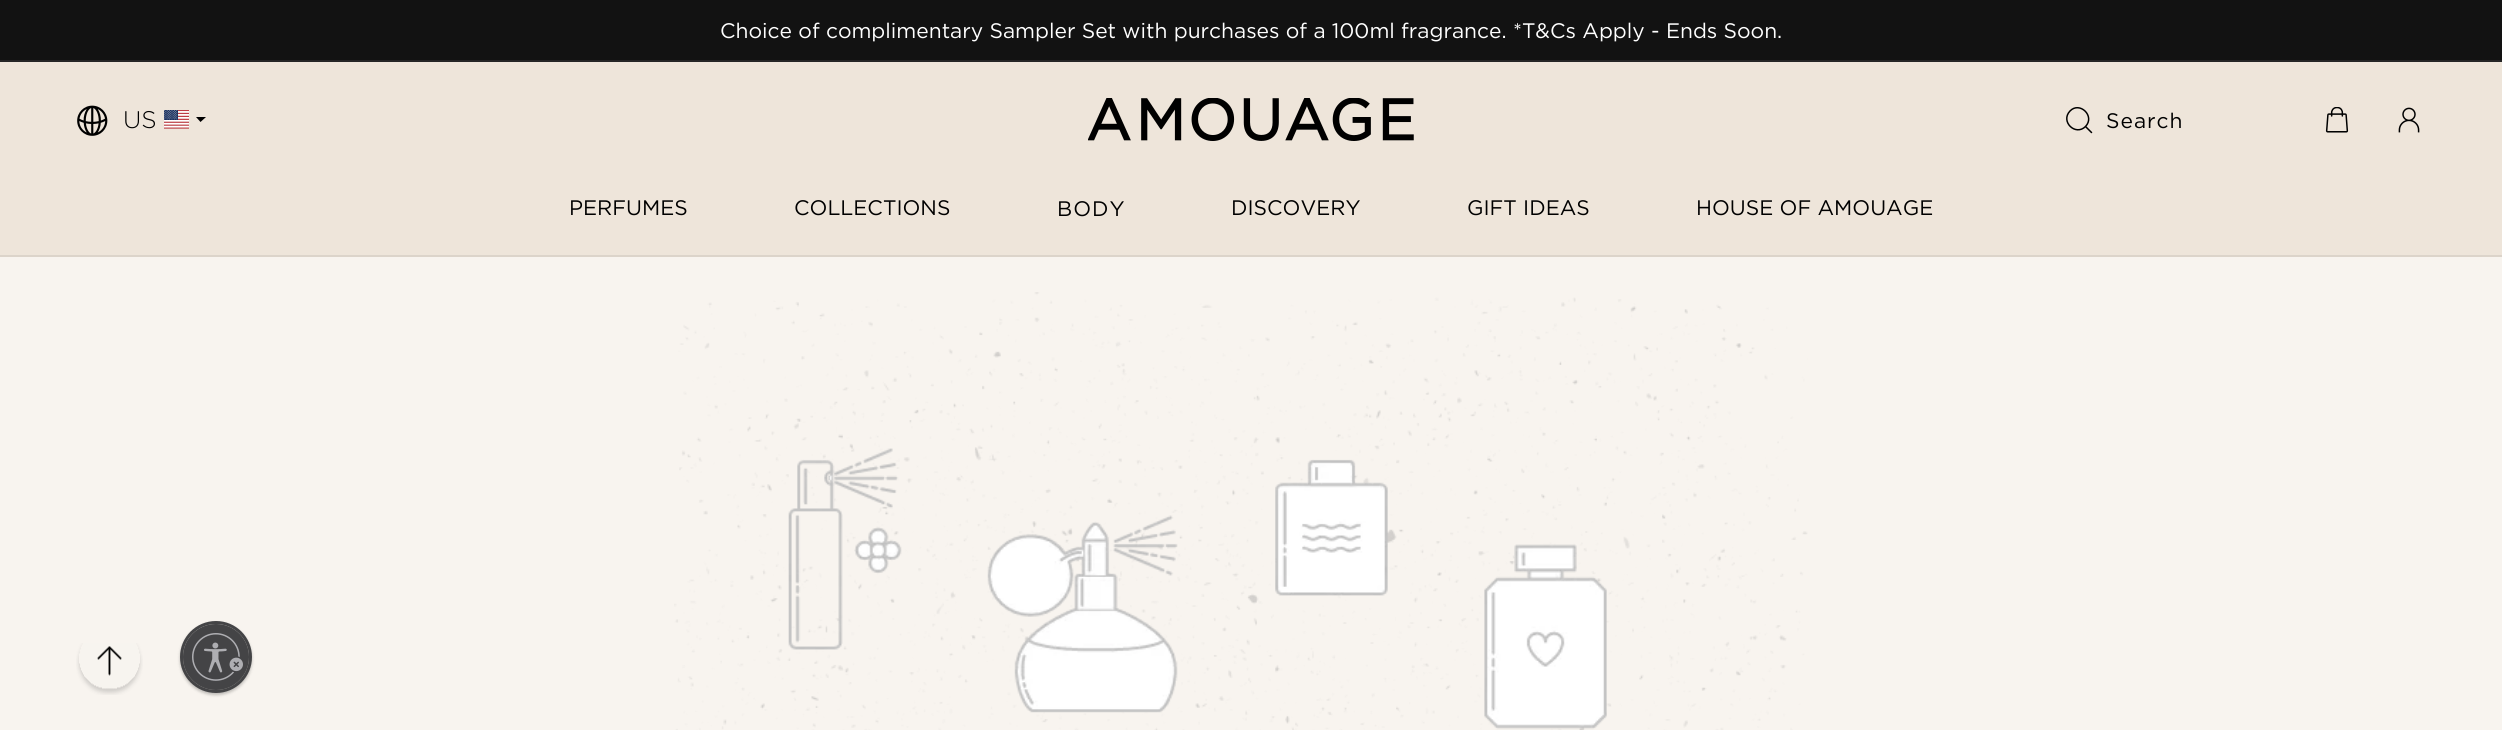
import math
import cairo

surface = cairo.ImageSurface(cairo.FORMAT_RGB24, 2502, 730)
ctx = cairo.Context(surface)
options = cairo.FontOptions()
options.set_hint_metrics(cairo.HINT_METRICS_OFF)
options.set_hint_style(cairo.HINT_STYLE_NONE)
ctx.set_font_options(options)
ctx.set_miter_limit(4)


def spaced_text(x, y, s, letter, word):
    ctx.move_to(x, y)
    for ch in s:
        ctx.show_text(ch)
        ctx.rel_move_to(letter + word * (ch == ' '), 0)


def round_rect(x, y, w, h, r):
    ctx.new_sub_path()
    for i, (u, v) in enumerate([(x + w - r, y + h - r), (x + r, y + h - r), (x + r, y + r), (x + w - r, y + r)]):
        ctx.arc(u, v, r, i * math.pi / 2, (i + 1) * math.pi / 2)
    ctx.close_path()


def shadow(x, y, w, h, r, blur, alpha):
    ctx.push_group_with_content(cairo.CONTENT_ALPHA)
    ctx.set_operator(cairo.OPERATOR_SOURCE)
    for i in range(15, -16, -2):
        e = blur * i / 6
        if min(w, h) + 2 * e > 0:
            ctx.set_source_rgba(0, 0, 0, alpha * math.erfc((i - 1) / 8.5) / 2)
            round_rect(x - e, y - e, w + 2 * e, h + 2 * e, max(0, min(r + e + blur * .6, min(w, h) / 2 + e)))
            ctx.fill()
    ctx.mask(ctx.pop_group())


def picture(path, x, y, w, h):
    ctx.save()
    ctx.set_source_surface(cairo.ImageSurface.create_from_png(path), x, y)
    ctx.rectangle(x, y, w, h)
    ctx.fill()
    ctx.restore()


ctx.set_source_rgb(0.969, 0.957, 0.937)
ctx.paint()
ctx.set_source_rgb(0.071, 0.071, 0.071)
ctx.rectangle(0, 0, 2502, 60)
ctx.fill()
ctx.set_source_rgb(0.145, 0.145, 0.145)
ctx.rectangle(0, 60, 2502, 2)
ctx.fill()
ctx.select_font_face("Gotham")
ctx.set_font_size(21)
ctx.set_source_rgb(1, 1, 1)
ctx.move_to(720, 38)
ctx.show_text("Choice of complimentary Sampler Set with purchases of a 100ml fragrance. *T&Cs Apply - Ends Soon.")
ctx.set_source_rgb(0.933, 0.898, 0.855)
ctx.rectangle(0, 62, 2502, 193)
ctx.fill()
ctx.set_source_rgb(0.863, 0.831, 0.792)
ctx.rectangle(0, 255, 2502, 2)
ctx.fill()
picture("img1.png", 77, 105, 31, 31)
ctx.select_font_face("Gotham Light")
ctx.set_font_size(24)
ctx.set_source_rgb(0, 0, 0)
ctx.move_to(123, 128)
ctx.show_text("US")
picture("img2.png", 164, 110, 25, 19)
ctx.new_path()
ctx.move_to(196, 117)
ctx.line_to(200.5, 122)
ctx.line_to(206, 117)
ctx.close_path()
ctx.fill()
picture("img3.png", 1088, 98, 326, 43)
ctx.new_path()
ctx.move_to(2091.5, 132.5)
ctx.line_to(2085.5, 126.5)
ctx.move_to(2085.5, 126.5)
ctx.curve_to(2095.5, 116, 2079.5, 101, 2070, 111)
ctx.curve_to(2060, 121.5, 2075.5, 136.5, 2085.5, 126.5)
ctx.close_path()
ctx.set_line_width(1.5)
ctx.set_line_cap(cairo.LINE_CAP_ROUND)
ctx.set_line_join(cairo.LINE_JOIN_ROUND)
ctx.stroke()
ctx.select_font_face("Gotham")
ctx.set_font_size(21)
spaced_text(2106, 128, "Search", 1, 0)
picture("img4.png", 2325, 107, 24, 26)
picture("img5.png", 2398, 107, 22, 26)
ctx.move_to(569, 215)
ctx.show_text("PERFUMES")
ctx.move_to(794, 215)
ctx.show_text("COLLECTIONS")
spaced_text(1057, 216, "BODY", 1, 0)
ctx.move_to(1231, 215)
ctx.show_text("DISCOVERY")
ctx.move_to(1467, 215)
ctx.show_text("GIFT IDEAS")
ctx.move_to(1696, 215)
ctx.show_text("HOUSE OF AMOUAGE")
picture("img6.png", 76, 643, 67, 52)
ctx.set_source_rgb(0, 0, 0)
shadow(180, 623, 72, 72, 36, 1.5, 0.24)
ctx.arc(216, 657, 34.5, 0, 2 * math.pi)
ctx.set_source_rgb(0.267, 0.267, 0.275)
ctx.set_line_width(3)
ctx.set_line_cap(cairo.LINE_CAP_BUTT)
ctx.set_line_join(cairo.LINE_JOIN_MITER)
ctx.stroke()
ctx.save()
round_rect(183, 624, 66, 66, 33)
ctx.clip()
ctx.set_source_rgb(0, 0, 0)
shadow(183, 626, 66, 66, 33, 1.5, 0.24)
ctx.restore()
ctx.arc(216, 657, 33, 0, 2 * math.pi)
ctx.fill()
picture("img7.png", 192, 633, 51, 48)
picture("img8.png", 674, 292, 1134, 438)
surface.write_to_png("page.png")
